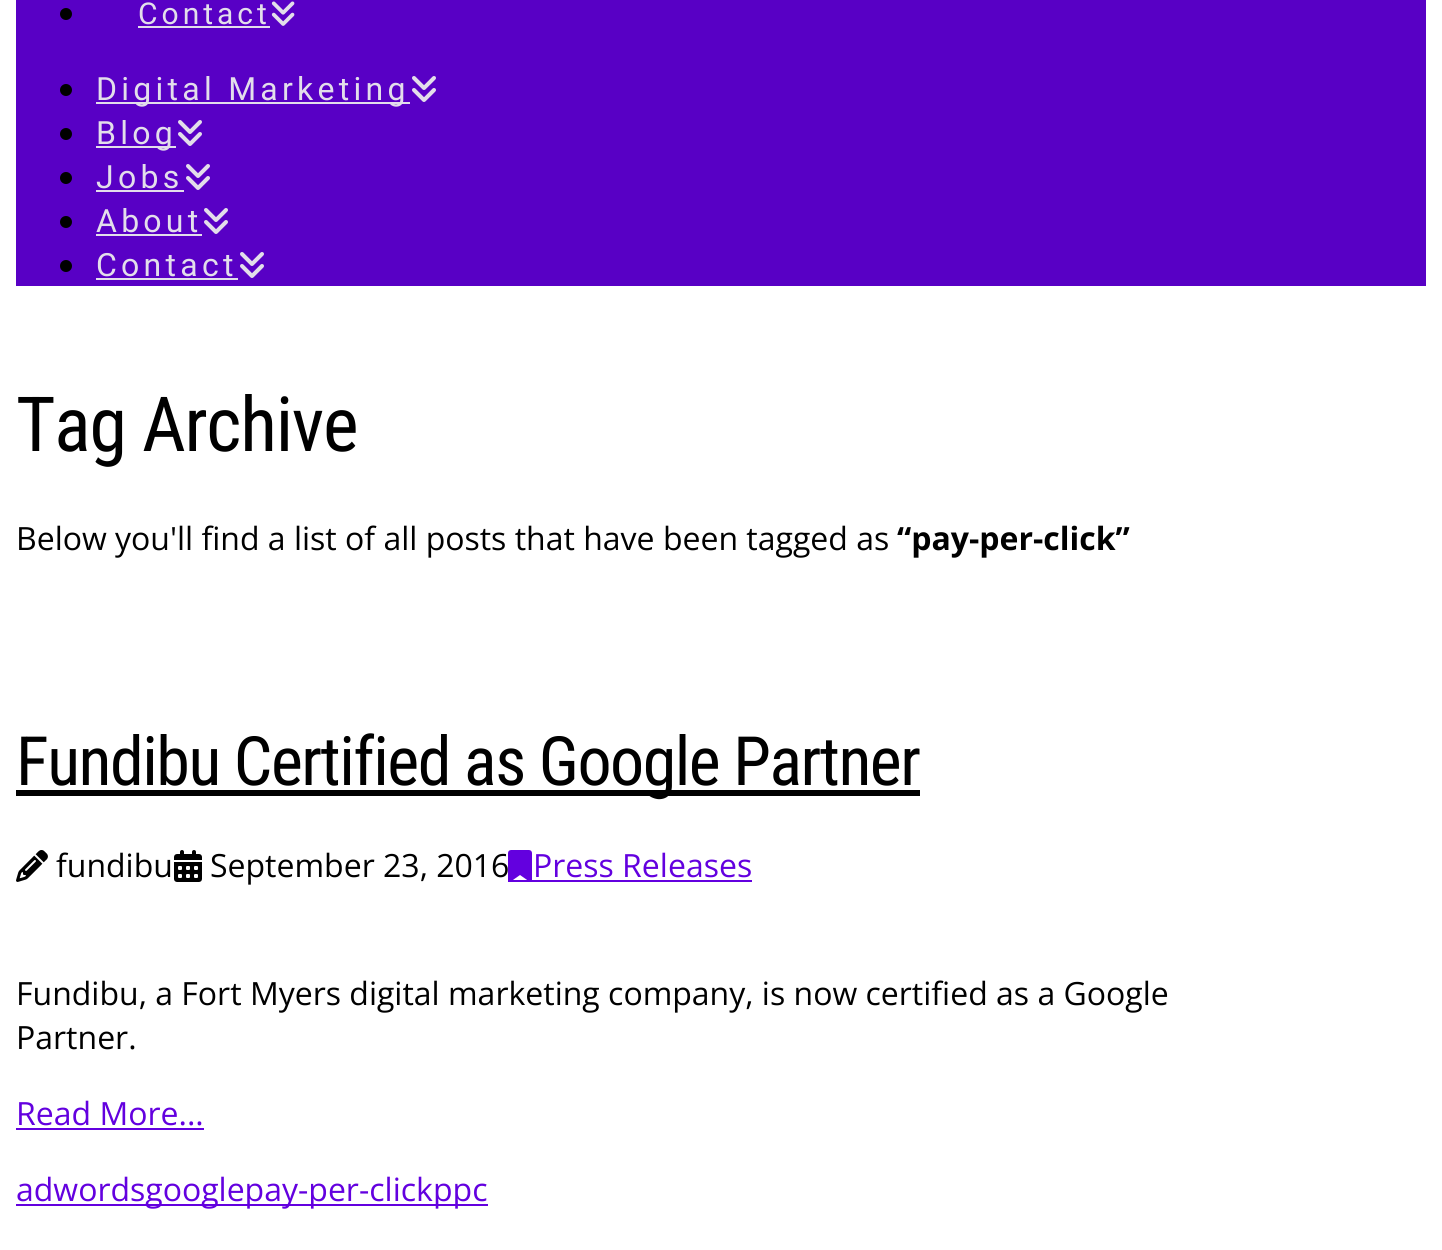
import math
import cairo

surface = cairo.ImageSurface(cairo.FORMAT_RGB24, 1442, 1250)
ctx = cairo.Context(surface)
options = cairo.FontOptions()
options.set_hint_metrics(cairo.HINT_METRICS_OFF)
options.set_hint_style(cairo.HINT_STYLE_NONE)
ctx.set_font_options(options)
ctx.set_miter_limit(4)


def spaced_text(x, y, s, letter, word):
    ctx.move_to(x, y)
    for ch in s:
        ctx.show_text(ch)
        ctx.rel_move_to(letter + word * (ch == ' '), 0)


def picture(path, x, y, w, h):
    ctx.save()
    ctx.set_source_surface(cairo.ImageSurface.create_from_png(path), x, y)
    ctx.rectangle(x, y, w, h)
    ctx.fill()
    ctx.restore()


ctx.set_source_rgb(1, 1, 1)
ctx.paint()
ctx.set_source_rgb(0.345, 0, 0.773)
ctx.rectangle(16, 0, 1410, 286)
ctx.fill()
ctx.set_source_rgb(0, 0, 0)
ctx.arc(66, 14, 6, 0, 2 * math.pi)
ctx.fill()
ctx.select_font_face("Roboto")
ctx.set_font_size(30)
ctx.set_source_rgb(0.89, 0.871, 0.918)
spaced_text(138, 24, "Contact", 4, 0)
ctx.rectangle(138, 26, 132, 2)
ctx.fill()
picture("img1.png", 271, 1, 24, 25)
ctx.set_source_rgb(0, 0, 0)
ctx.arc(66, 90, 6, 0, 2 * math.pi)
ctx.fill()
ctx.set_source_rgb(0.89, 0.871, 0.918)
ctx.rectangle(96, 102, 314, 2)
ctx.fill()
ctx.set_font_size(32)
spaced_text(96, 100, "Digital Marketing", 4.25, 0)
picture("img2.png", 412, 76, 24, 26)
ctx.set_source_rgb(0, 0, 0)
ctx.arc(66, 134, 6, 0, 2 * math.pi)
ctx.fill()
ctx.set_source_rgb(0.89, 0.871, 0.918)
ctx.rectangle(96, 146, 80, 2)
ctx.fill()
spaced_text(96, 144, "Blog", 4.25, 0)
picture("img2.png", 178, 120, 24, 26)
ctx.set_source_rgb(0, 0, 0)
ctx.arc(66, 178, 6, 0, 2 * math.pi)
ctx.fill()
ctx.set_source_rgb(0.89, 0.871, 0.918)
spaced_text(96, 188, "Jobs", 4.25, 0)
ctx.rectangle(96, 190, 88, 2)
ctx.fill()
picture("img2.png", 186, 164, 24, 26)
ctx.set_source_rgb(0, 0, 0)
ctx.arc(66, 222, 6, 0, 2 * math.pi)
ctx.fill()
ctx.set_source_rgb(0.89, 0.871, 0.918)
spaced_text(96, 232, "About", 4.25, 0)
ctx.rectangle(96, 234, 106, 2)
ctx.fill()
picture("img2.png", 204, 208, 24, 26)
ctx.set_source_rgb(0, 0, 0)
ctx.arc(66, 266, 6, 0, 2 * math.pi)
ctx.fill()
ctx.set_source_rgb(0.89, 0.871, 0.918)
spaced_text(96, 276, "Contact", 4.25, 0)
ctx.rectangle(96, 278, 142, 2)
ctx.fill()
picture("img2.png", 240, 252, 24, 26)
ctx.select_font_face("Roboto Condensed")
ctx.set_font_size(76)
ctx.set_source_rgb(0, 0, 0)
spaced_text(16, 451, "Tag Archive", -1.25, 0)
ctx.select_font_face("Open Sans")
ctx.set_font_size(32)
ctx.move_to(16, 550)
ctx.show_text("Below you'll find a list of all posts that have been tagged as")
ctx.select_font_face("Open Sans", cairo.FONT_SLANT_NORMAL, cairo.FONT_WEIGHT_BOLD)
ctx.move_to(897, 550)
ctx.show_text("“pay-per-click”")
ctx.rectangle(16, 790, 904, 6)
ctx.fill()
ctx.select_font_face("Roboto Condensed")
ctx.set_font_size(68)
spaced_text(16, 785, "Fundibu Certified as Google Partner", -1.5, 0)
picture("img3.png", 16, 850, 32, 32)
ctx.select_font_face("Open Sans")
ctx.set_font_size(32)
ctx.move_to(56, 877)
ctx.show_text("fundibu")
picture("img4.png", 174, 850, 28, 32)
ctx.move_to(210, 877)
ctx.show_text("September 23, 2016")
ctx.set_source_rgb(0.388, 0, 0.875)
ctx.rectangle(508, 880, 244, 2)
ctx.fill()
picture("img5.png", 508, 850, 24, 30)
ctx.move_to(533, 877)
ctx.show_text("Press Releases")
ctx.set_source_rgb(0, 0, 0)
ctx.move_to(16, 1005)
ctx.show_text("Fundibu, a Fort Myers digital marketing company, is now certified as a Google")
ctx.move_to(16, 1049)
ctx.show_text("Partner.")
ctx.set_source_rgb(0.388, 0, 0.875)
ctx.move_to(16, 1125)
ctx.show_text("Read More...")
ctx.rectangle(16, 1128, 188, 2)
ctx.fill()
ctx.rectangle(16, 1204, 416, 2)
ctx.fill()
ctx.move_to(16, 1201)
ctx.show_text("adwordsgooglepay-per-click")
ctx.rectangle(432, 1204, 56, 2)
ctx.fill()
ctx.move_to(433, 1201)
ctx.show_text("ppc")
surface.write_to_png("page.png")
